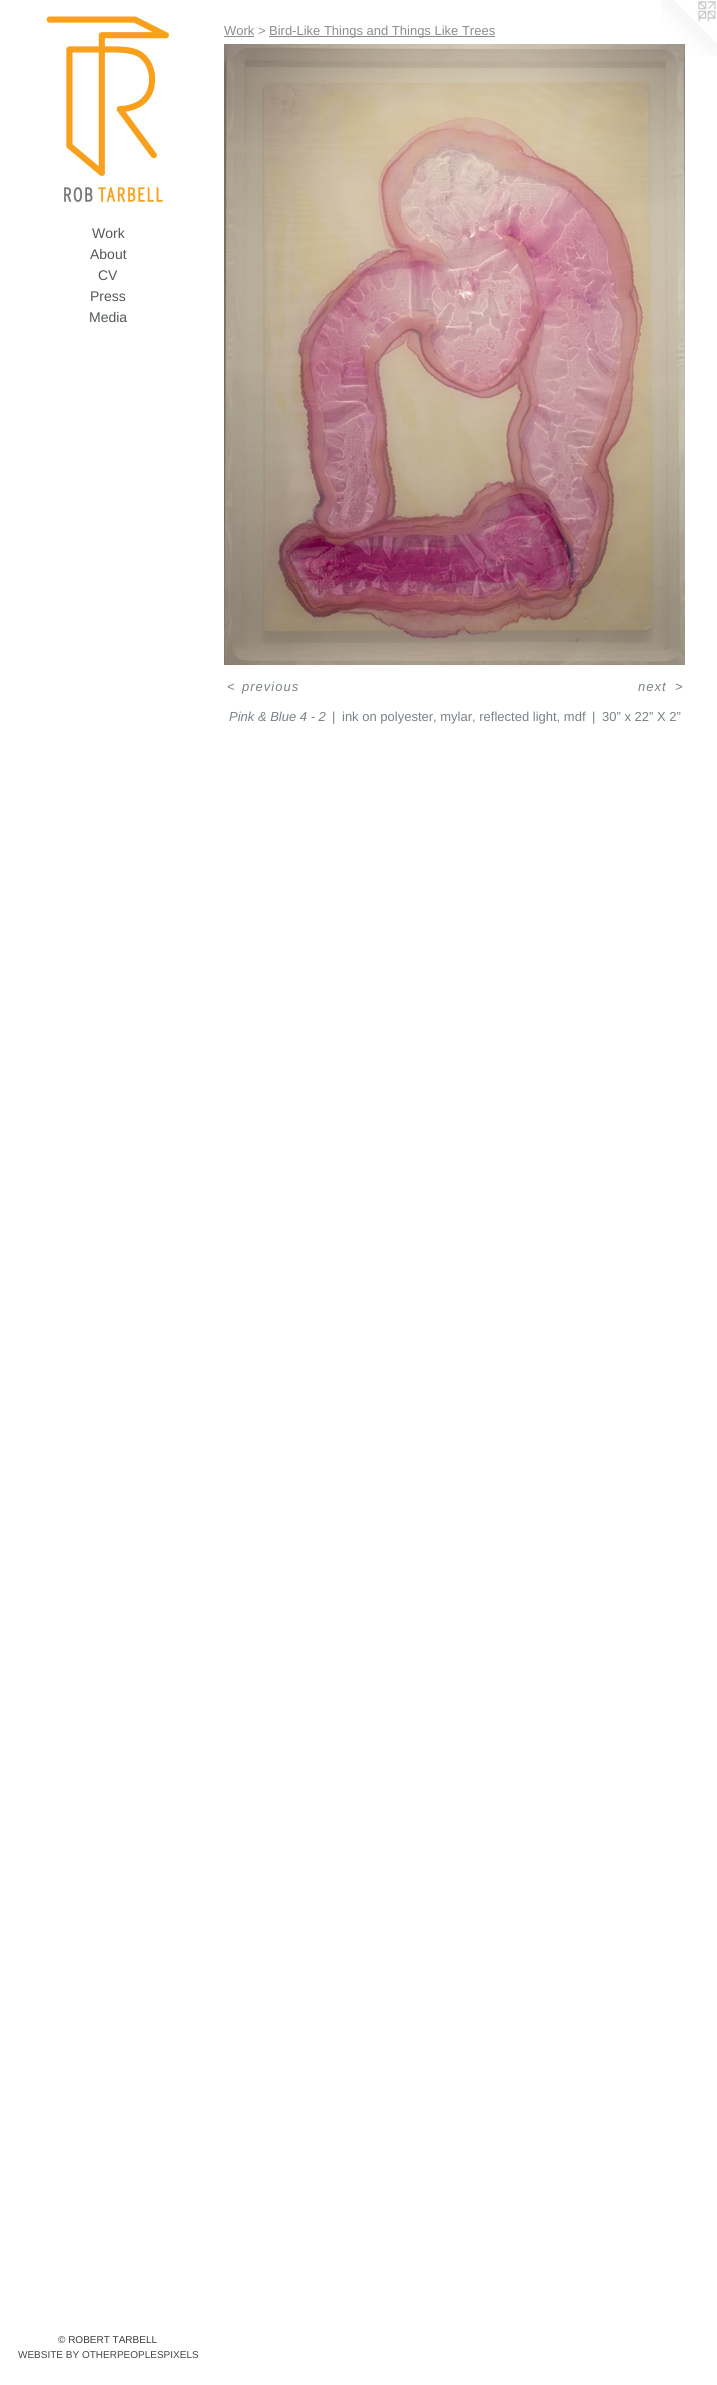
import math
import cairo

surface = cairo.ImageSurface(cairo.FORMAT_RGB24, 717, 2385)
ctx = cairo.Context(surface)
options = cairo.FontOptions()
options.set_hint_metrics(cairo.HINT_METRICS_OFF)
options.set_hint_style(cairo.HINT_STYLE_NONE)
ctx.set_font_options(options)
ctx.set_miter_limit(4)


def spaced_text(x, y, s, letter, word):
    ctx.move_to(x, y)
    for ch in s:
        ctx.show_text(ch)
        ctx.rel_move_to(letter + word * (ch == ' '), 0)


def picture(path, x, y, w, h):
    ctx.save()
    ctx.set_source_surface(cairo.ImageSurface.create_from_png(path), x, y)
    ctx.rectangle(x, y, w, h)
    ctx.fill()
    ctx.restore()


ctx.set_source_rgb(1, 1, 1)
ctx.paint()
picture("img1.png", 40, 16, 136, 192)
ctx.select_font_face("Liberation Sans")
ctx.set_font_size(14)
ctx.set_source_rgb(0.329, 0.345, 0.349)
ctx.move_to(92, 238)
ctx.show_text("Work")
ctx.move_to(90, 259)
ctx.show_text("About")
ctx.move_to(98, 280)
ctx.show_text("CV")
ctx.move_to(90, 301)
ctx.show_text("Press")
ctx.move_to(89, 322)
ctx.show_text("Media")
ctx.set_font_size(10)
ctx.set_source_rgb(0.22, 0.231, 0.239)
ctx.move_to(58, 2343)
ctx.show_text("© ROBERT TARBELL")
ctx.set_source_rgb(0.267, 0.271, 0.275)
ctx.move_to(18, 2358)
ctx.show_text("WEBSITE BY OTHERPEOPLESPIXELS")
ctx.set_font_size(13)
ctx.set_source_rgb(0.549, 0.549, 0.549)
ctx.move_to(224, 35)
ctx.show_text("Work >")
ctx.rectangle(224, 36, 30, 1)
ctx.fill()
ctx.rectangle(269, 36, 226, 1)
ctx.fill()
ctx.move_to(269, 35)
ctx.show_text("Bird-Like Things and Things Like Trees")
picture("img3.png", 661, 0, 56, 56)
picture("img2.png", 224, 44, 461, 621)
ctx.select_font_face("Liberation Sans", cairo.FONT_SLANT_ITALIC)
ctx.set_source_rgb(0.475, 0.51, 0.525)
spaced_text(227, 691, "<", 1, 0)
spaced_text(242, 691, "previous", 1, 0)
spaced_text(638, 691, "next", 1, 0)
spaced_text(675, 691, ">", 1, 0)
ctx.move_to(229, 721)
ctx.show_text("Pink & Blue 4 - 2")
ctx.select_font_face("Liberation Sans")
ctx.move_to(332, 721)
ctx.show_text("|")
ctx.move_to(342, 721)
ctx.show_text("ink on polyester, mylar, reflected light, mdf")
ctx.move_to(592, 721)
ctx.show_text("|")
ctx.move_to(602, 721)
ctx.show_text("30” x 22” X 2”")
surface.write_to_png("page.png")
